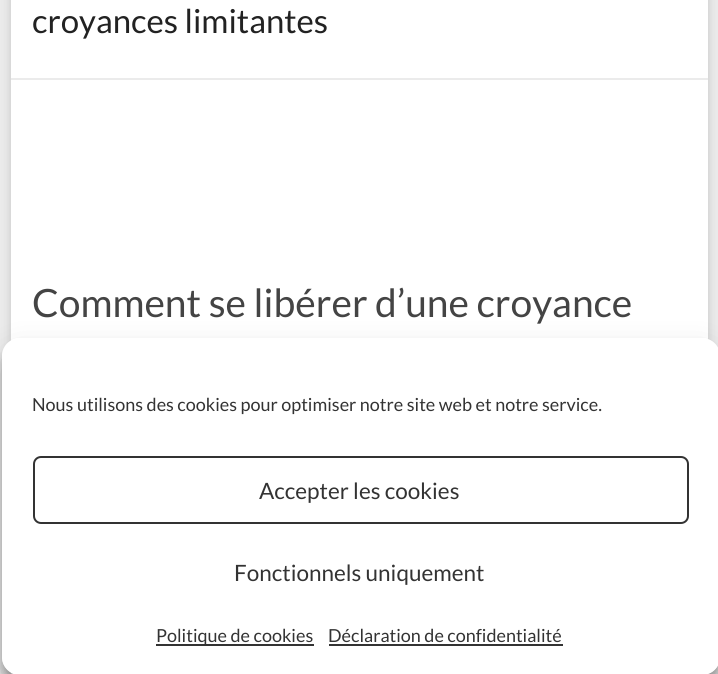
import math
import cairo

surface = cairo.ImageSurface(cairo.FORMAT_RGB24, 718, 674)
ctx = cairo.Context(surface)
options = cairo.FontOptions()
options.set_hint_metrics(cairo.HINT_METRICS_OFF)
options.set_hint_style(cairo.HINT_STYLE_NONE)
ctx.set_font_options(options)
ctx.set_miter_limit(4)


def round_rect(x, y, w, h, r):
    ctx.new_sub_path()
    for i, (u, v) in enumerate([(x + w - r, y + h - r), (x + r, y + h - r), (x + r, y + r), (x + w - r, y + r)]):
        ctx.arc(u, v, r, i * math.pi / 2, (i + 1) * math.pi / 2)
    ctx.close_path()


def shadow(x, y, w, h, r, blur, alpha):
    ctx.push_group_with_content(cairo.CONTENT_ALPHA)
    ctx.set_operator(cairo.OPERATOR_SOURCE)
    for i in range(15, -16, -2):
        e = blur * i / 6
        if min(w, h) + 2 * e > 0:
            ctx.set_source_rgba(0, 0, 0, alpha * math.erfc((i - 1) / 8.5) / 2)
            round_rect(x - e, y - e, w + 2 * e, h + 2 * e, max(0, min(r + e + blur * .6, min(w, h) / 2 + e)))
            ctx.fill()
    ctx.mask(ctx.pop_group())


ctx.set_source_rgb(0.918, 0.918, 0.918)
ctx.paint()
ctx.set_source_rgb(0.392, 0.392, 0.392)
shadow(11, -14, 697, 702, 0, 4.5, 0.3)
ctx.set_source_rgb(1, 1, 1)
ctx.rectangle(11, 0, 697, 674)
ctx.fill()
ctx.set_source_rgb(0.918, 0.918, 0.918)
ctx.rectangle(11, 78, 697, 2)
ctx.fill()
ctx.select_font_face("Lato")
ctx.set_font_size(33)
ctx.set_source_rgb(0.133, 0.133, 0.133)
ctx.move_to(32, 33)
ctx.show_text("croyances limitantes")
ctx.set_font_size(39)
ctx.set_source_rgb(0.267, 0.267, 0.267)
ctx.move_to(32, 317)
ctx.show_text("Comment se libérer d’une croyance")
ctx.save()
ctx.set_fill_rule(cairo.FILL_RULE_EVEN_ODD)
ctx.new_path()
ctx.move_to(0, 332)
ctx.line_to(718, 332)
ctx.line_to(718, 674)
ctx.line_to(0, 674)
ctx.close_path()
ctx.move_to(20, 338)
ctx.line_to(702, 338)
ctx.curve_to(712, 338, 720, 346, 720, 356)
ctx.line_to(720, 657)
ctx.curve_to(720, 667, 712, 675, 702, 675)
ctx.line_to(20, 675)
ctx.curve_to(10, 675, 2, 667, 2, 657)
ctx.line_to(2, 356)
ctx.curve_to(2, 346, 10, 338, 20, 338)
ctx.close_path()
ctx.clip()
ctx.set_source_rgb(0, 0, 0)
shadow(2, 347, 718, 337, 18, 4.5, 0.23)
ctx.restore()
ctx.save()
ctx.set_fill_rule(cairo.FILL_RULE_EVEN_ODD)
ctx.new_path()
ctx.move_to(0, 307)
ctx.line_to(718, 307)
ctx.line_to(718, 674)
ctx.line_to(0, 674)
ctx.close_path()
ctx.move_to(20, 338)
ctx.line_to(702, 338)
ctx.curve_to(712, 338, 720, 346, 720, 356)
ctx.line_to(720, 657)
ctx.curve_to(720, 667, 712, 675, 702, 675)
ctx.line_to(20, 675)
ctx.curve_to(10, 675, 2, 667, 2, 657)
ctx.line_to(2, 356)
ctx.curve_to(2, 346, 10, 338, 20, 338)
ctx.close_path()
ctx.clip()
ctx.set_source_rgb(0, 0, 0)
shadow(2, 353, 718, 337, 18, 15, 0.19)
ctx.restore()
ctx.set_source_rgb(1, 1, 1)
round_rect(3, 339, 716, 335, 17)
ctx.fill_preserve()
ctx.stroke()
ctx.set_font_size(18)
ctx.set_source_rgb(0.2, 0.2, 0.2)
ctx.move_to(32, 411)
ctx.show_text("Nous utilisons des cookies pour optimiser notre site web et notre service.")
round_rect(34, 457, 654, 66, 7)
ctx.stroke()
ctx.set_font_size(22.5)
ctx.move_to(259, 499)
ctx.show_text("Accepter les cookies")
ctx.move_to(234, 581)
ctx.show_text("Fonctionnels uniquement")
ctx.rectangle(156, 644, 158, 2)
ctx.fill()
ctx.set_font_size(18)
ctx.move_to(156, 642)
ctx.show_text("Politique de cookies")
ctx.move_to(328, 642)
ctx.show_text("Déclaration de confidentialité")
ctx.rectangle(329, 644, 234, 2)
ctx.fill()
surface.write_to_png("page.png")
